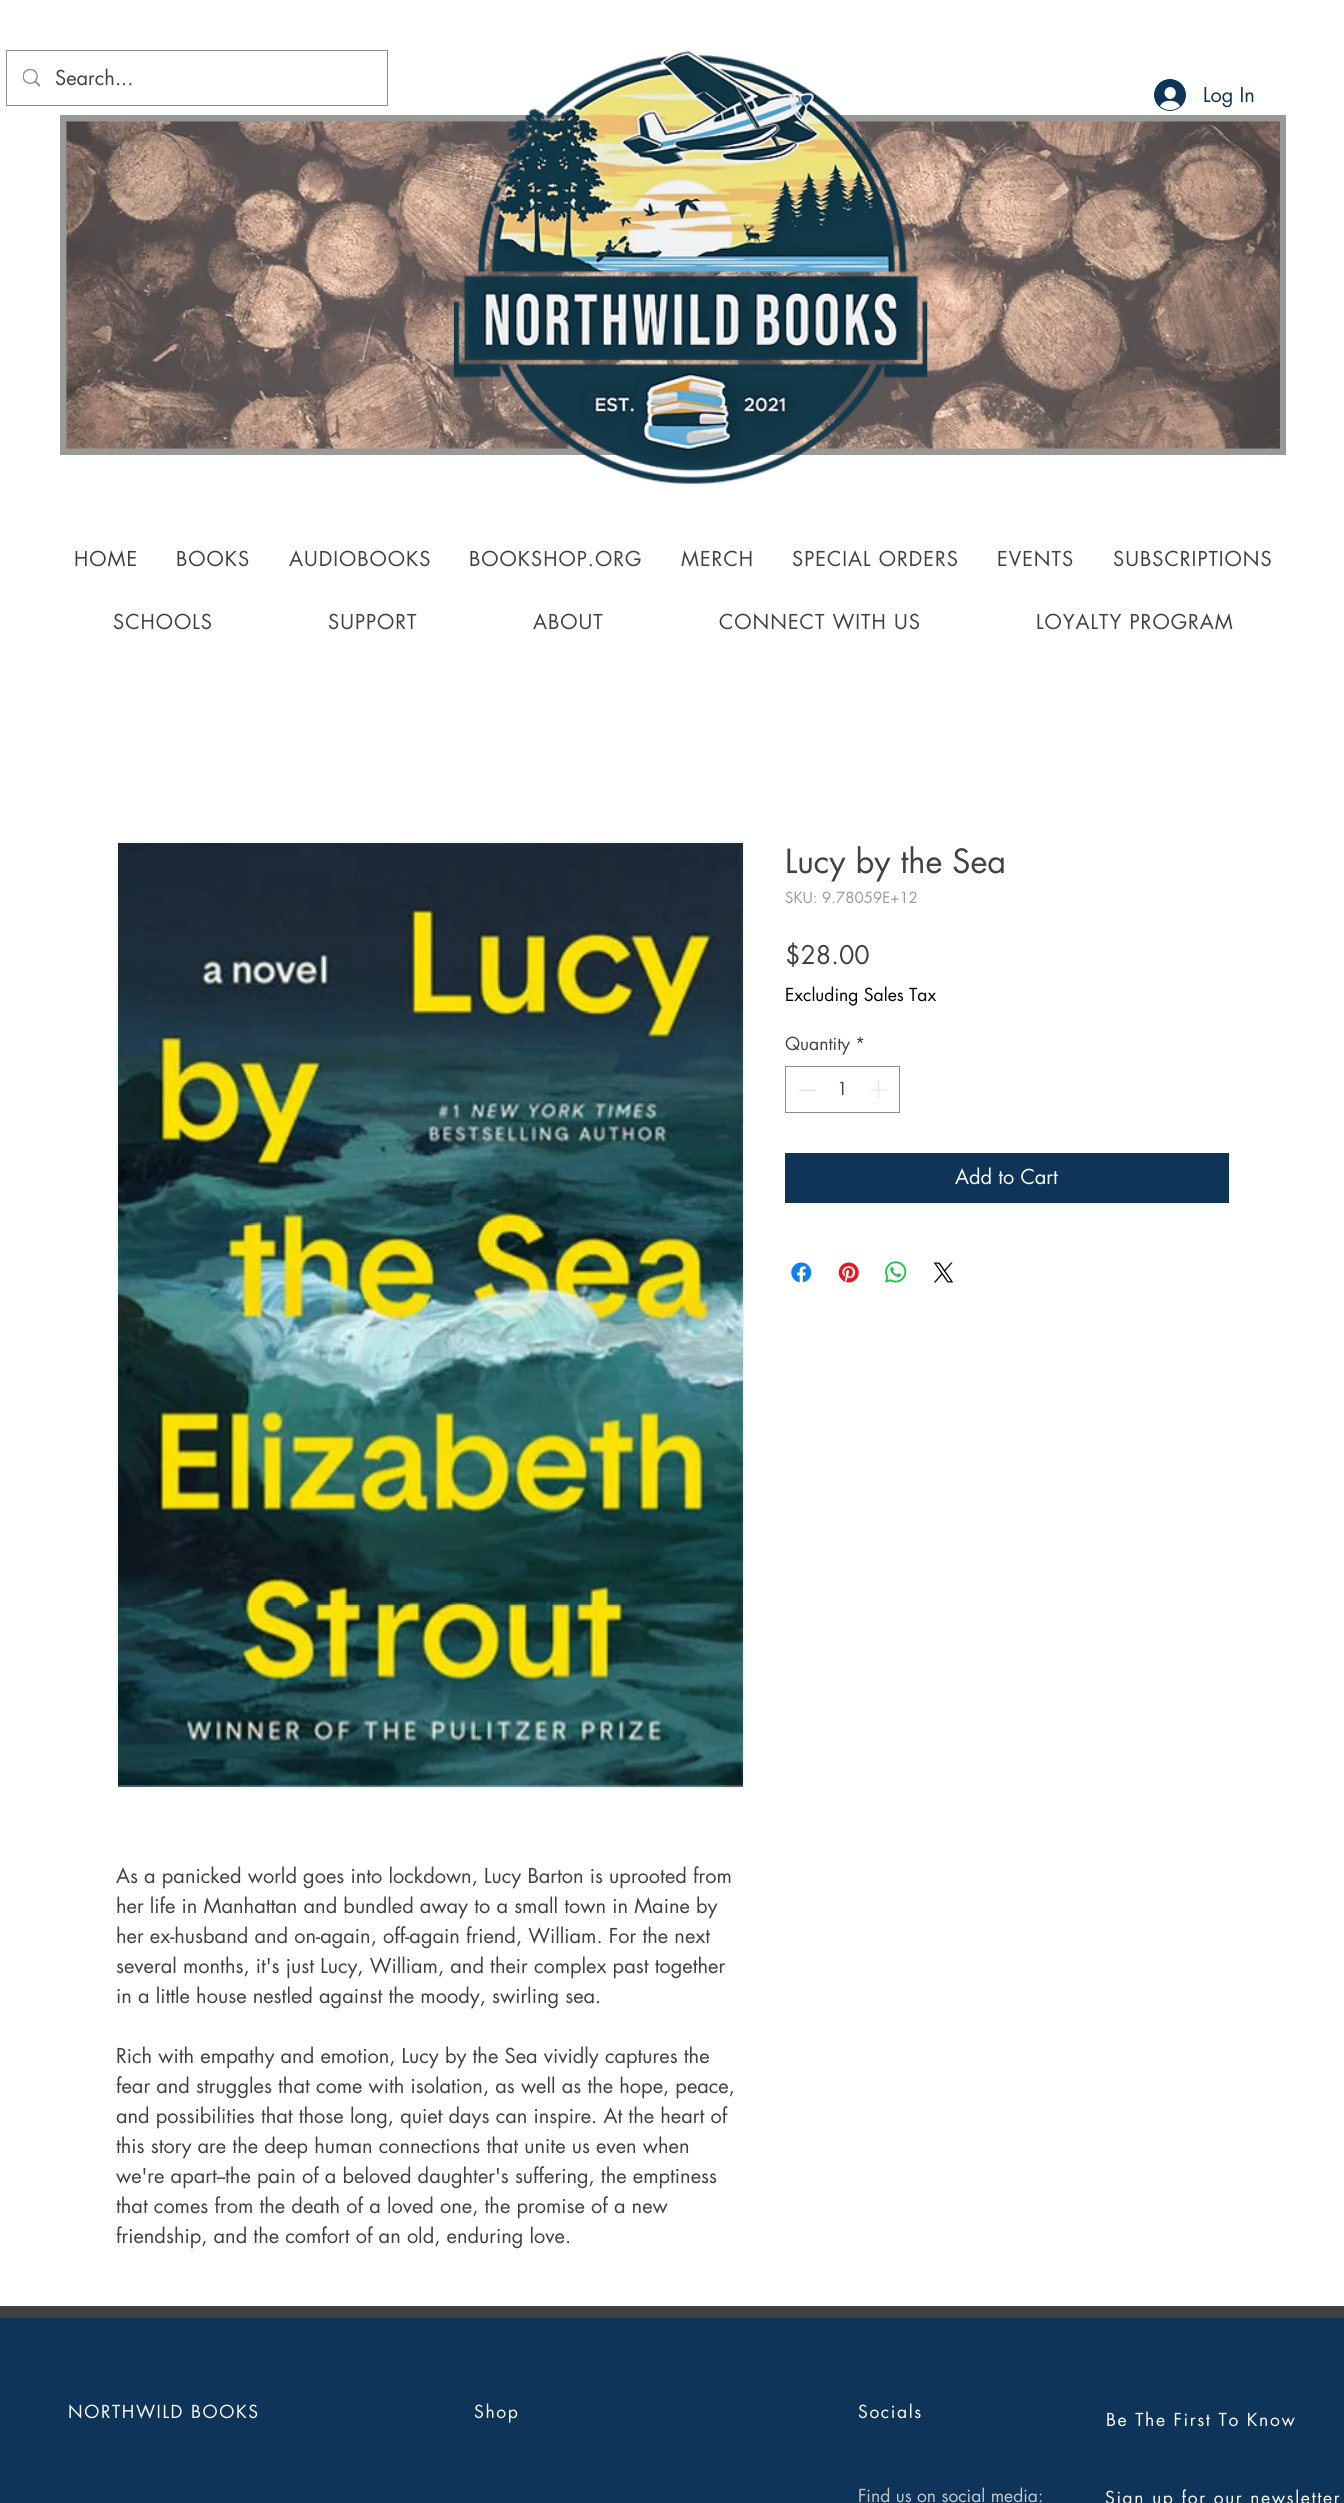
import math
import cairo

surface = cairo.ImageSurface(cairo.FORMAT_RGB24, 1344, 2503)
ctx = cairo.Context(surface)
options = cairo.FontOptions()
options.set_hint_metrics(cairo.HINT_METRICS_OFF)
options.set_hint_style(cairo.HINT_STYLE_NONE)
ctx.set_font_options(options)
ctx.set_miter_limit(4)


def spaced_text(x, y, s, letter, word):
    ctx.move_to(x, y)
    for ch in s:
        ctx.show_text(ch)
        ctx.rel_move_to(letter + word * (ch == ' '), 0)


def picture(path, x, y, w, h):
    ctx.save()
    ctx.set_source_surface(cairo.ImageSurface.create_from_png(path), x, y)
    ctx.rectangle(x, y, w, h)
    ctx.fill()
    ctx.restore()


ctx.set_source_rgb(1, 1, 1)
ctx.paint()
ctx.rectangle(6.5, 50.5, 381, 55)
ctx.set_source_rgb(0.553, 0.553, 0.553)
ctx.set_line_width(1)
ctx.stroke()
picture("img1.png", 23, 69, 17, 18)
ctx.select_font_face("futura")
ctx.set_font_size(20)
ctx.set_source_rgb(0.255, 0.255, 0.255)
ctx.move_to(55, 85)
ctx.show_text("Search...")
ctx.set_source_rgb(0.6, 0.6, 0.592)
ctx.rectangle(60, 115, 1226, 340)
ctx.fill()
picture("img4.png", 66, 121, 1214, 328)
picture("img2.png", 453, 50, 475, 434)
picture("img3.png", 1154, 79, 32, 32)
ctx.set_source_rgb(0.055, 0.204, 0.353)
ctx.move_to(1203, 102)
ctx.show_text("Log In")
ctx.set_source_rgb(0.255, 0.255, 0.255)
spaced_text(74, 566, "HOME", 1, 0)
spaced_text(176, 566, "BOOKS", 1, 0)
spaced_text(289, 566, "AUDIOBOOKS", 1, 0)
spaced_text(469, 566, "BOOKSHOP.ORG", 1, 0)
spaced_text(681, 566, "MERCH", 1, 0)
spaced_text(792, 566, "SPECIAL ORDERS", 1, 0)
spaced_text(997, 566, "EVENTS", 1, 0)
spaced_text(1113, 566, "SUBSCRIPTIONS", 1, 0)
spaced_text(113, 629, "SCHOOLS", 1, 0)
spaced_text(328, 629, "SUPPORT", 1, 0)
spaced_text(533, 629, "ABOUT", 1, 0)
spaced_text(719, 629, "CONNECT WITH US", 1, 0)
spaced_text(1036, 629, "LOYALTY PROGRAM", 1, 0)
ctx.set_font_size(32.5)
ctx.move_to(785, 873)
ctx.show_text("Lucy by the Sea")
ctx.set_font_size(15)
ctx.set_source_rgb(0.6, 0.6, 0.592)
ctx.move_to(785, 903)
ctx.show_text("SKU: 9.78059E+12")
ctx.set_font_size(25)
ctx.set_source_rgb(0.255, 0.255, 0.255)
ctx.move_to(785, 964)
ctx.show_text("$28.00")
ctx.set_font_size(17.5)
ctx.set_source_rgb(0, 0, 0)
ctx.move_to(785, 1001)
ctx.show_text("Excluding Sales Tax")
ctx.set_source_rgb(0.255, 0.255, 0.255)
ctx.move_to(785, 1050)
ctx.show_text("Quantity")
ctx.move_to(855, 1050)
ctx.show_text("*")
ctx.rectangle(785.5, 1066.5, 114, 46)
ctx.set_source_rgb(0.553, 0.553, 0.553)
ctx.stroke()
ctx.set_source_rgb(0.89, 0.89, 0.89)
ctx.rectangle(799, 1090, 17, 1)
ctx.fill()
ctx.set_source_rgb(0.255, 0.255, 0.255)
ctx.move_to(837, 1095)
ctx.show_text("1")
picture("img5.png", 870, 1081, 17, 17)
ctx.set_source_rgb(0.055, 0.204, 0.353)
ctx.rectangle(785, 1153, 444, 50)
ctx.fill()
ctx.set_font_size(20)
ctx.set_source_rgb(1, 1, 1)
ctx.move_to(955, 1184)
ctx.show_text("Add to Cart")
picture("img6.png", 791, 1262, 21, 21)
picture("img7.png", 838, 1262, 21, 21)
picture("img8.png", 885, 1261, 22, 22)
picture("img9.png", 933, 1262, 21, 21)
ctx.rectangle(116.5, 841.5, 627, 946)
ctx.set_source_rgb(0.949, 0.949, 0.949)
ctx.stroke()
picture("img10.png", 118, 843, 625, 944)
ctx.set_source_rgb(0.255, 0.255, 0.255)
ctx.move_to(116, 1883)
ctx.show_text("As a panicked world goes into lockdown, Lucy Barton is uprooted from")
ctx.move_to(116, 1913)
ctx.show_text("her life in Manhattan and bundled away to a small town in Maine by")
ctx.move_to(116, 1943)
ctx.show_text("her ex-husband and on-again, off-again friend, William. For the next")
ctx.move_to(116, 1973)
ctx.show_text("several months, it's just Lucy, William, and their complex past together")
ctx.move_to(116, 2003)
ctx.show_text("in a little house nestled against the moody, swirling sea.")
ctx.move_to(116, 2063)
ctx.show_text("Rich with empathy and emotion, Lucy by the Sea vividly captures the")
ctx.move_to(116, 2093)
ctx.show_text("fear and struggles that come with isolation, as well as the hope, peace,")
ctx.move_to(116, 2123)
ctx.show_text("and possibilities that those long, quiet days can inspire. At the heart of")
ctx.move_to(116, 2153)
ctx.show_text("this story are the deep human connections that unite us even when")
ctx.move_to(116, 2183)
ctx.show_text("we're apart--the pain of a beloved daughter's suffering, the emptiness")
ctx.move_to(116, 2213)
ctx.show_text("that comes from the death of a loved one, the promise of a new")
ctx.move_to(116, 2243)
ctx.show_text("friendship, and the comfort of an old, enduring love.")
ctx.rectangle(0, 2306, 1344, 12)
ctx.fill()
ctx.set_source_rgb(0.055, 0.204, 0.353)
ctx.rectangle(0, 2318, 1344, 185)
ctx.fill()
ctx.set_font_size(17.5)
ctx.set_source_rgb(1, 1, 1)
spaced_text(68, 2418, "NORTHWILD BOOKS", 1.6, 0)
spaced_text(474, 2418, "Shop", 1.6, 0)
spaced_text(858, 2418, "Socials", 1.6, 0)
spaced_text(1106, 2426, "Be The First To Know", 1.6, 0)
ctx.set_source_rgb(0.78, 0.78, 0.78)
ctx.move_to(858, 2502)
ctx.show_text("Find us on social media:")
ctx.set_source_rgb(1, 1, 1)
spaced_text(1105, 2504, "Sign up for our newsletter", 1.6, 0)
surface.write_to_png("page.png")
